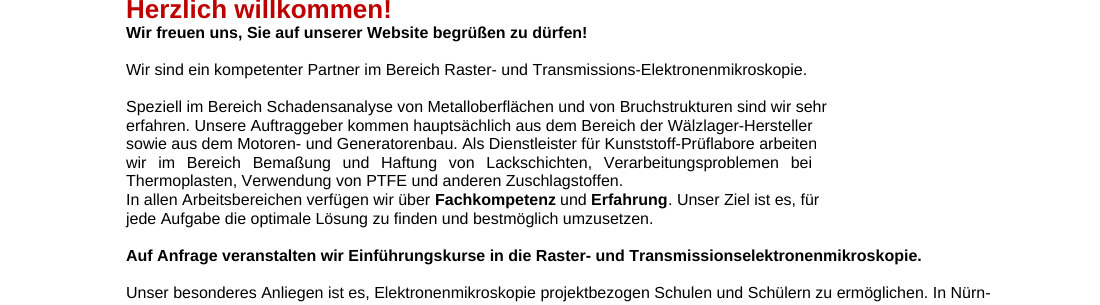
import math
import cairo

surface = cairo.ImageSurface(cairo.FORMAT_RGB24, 1100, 305)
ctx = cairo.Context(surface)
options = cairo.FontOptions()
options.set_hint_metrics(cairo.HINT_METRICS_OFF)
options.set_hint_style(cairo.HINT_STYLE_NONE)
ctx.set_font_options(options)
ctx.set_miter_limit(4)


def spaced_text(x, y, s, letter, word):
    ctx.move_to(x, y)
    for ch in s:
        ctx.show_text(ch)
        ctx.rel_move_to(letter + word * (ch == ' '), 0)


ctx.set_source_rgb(1, 1, 1)
ctx.paint()
ctx.select_font_face("Liberation Sans", cairo.FONT_SLANT_NORMAL, cairo.FONT_WEIGHT_BOLD)
ctx.set_font_size(26)
ctx.set_source_rgb(0.745, 0, 0)
ctx.move_to(126, 18)
ctx.show_text("Herzlich willkommen!")
ctx.set_font_size(16)
ctx.set_source_rgb(0, 0, 0)
ctx.move_to(126, 38)
ctx.show_text("Wir freuen uns, Sie auf unserer Website begrüßen zu dürfen!")
ctx.select_font_face("Liberation Sans")
ctx.move_to(126, 75)
ctx.show_text("Wir sind ein kompetenter Partner im Bereich Raster- und Transmissions-Elektronenmikroskopie.")
ctx.move_to(126, 112)
ctx.show_text("Speziell im Bereich Schadensanalyse von Metalloberflächen und von Bruchstrukturen sind wir sehr")
ctx.move_to(126, 131)
ctx.show_text("erfahren. Unsere Auftraggeber kommen hauptsächlich aus dem Bereich der Wälzlager-Hersteller")
ctx.move_to(126, 149)
ctx.show_text("sowie aus dem Motoren- und Generatorenbau. Als Dienstleister für Kunststoff-Prüflabore arbeiten")
spaced_text(126, 168, "wir im Bereich Bemaßung und Haftung von Lackschichten, Verarbeitungsproblemen bei", 0, 7.25)
ctx.move_to(126, 186)
ctx.show_text("Thermoplasten, Verwendung von PTFE und anderen Zuschlagstoffen.")
ctx.move_to(126, 205)
ctx.show_text("In allen Arbeitsbereichen verfügen wir über")
ctx.select_font_face("Liberation Sans", cairo.FONT_SLANT_NORMAL, cairo.FONT_WEIGHT_BOLD)
ctx.move_to(435, 205)
ctx.show_text("Fachkompetenz")
ctx.select_font_face("Liberation Sans")
ctx.move_to(560, 205)
ctx.show_text("und")
ctx.select_font_face("Liberation Sans", cairo.FONT_SLANT_NORMAL, cairo.FONT_WEIGHT_BOLD)
ctx.move_to(591, 205)
ctx.show_text("Erfahrung")
ctx.select_font_face("Liberation Sans")
ctx.move_to(668, 205)
ctx.show_text(". Unser Ziel ist es, für")
ctx.move_to(126, 224)
ctx.show_text("jede Aufgabe die optimale Lösung zu finden und bestmöglich umzusetzen.")
ctx.select_font_face("Liberation Sans", cairo.FONT_SLANT_NORMAL, cairo.FONT_WEIGHT_BOLD)
ctx.move_to(126, 261)
ctx.show_text("Auf Anfrage veranstalten wir Einführungskurse in die Raster- und Transmissionselektronenmikroskopie.")
ctx.select_font_face("Liberation Sans")
ctx.move_to(126, 298)
ctx.show_text("Unser besonderes Anliegen ist es, Elektronenmikroskopie projektbezogen Schulen und Schülern zu ermöglichen. In Nürn-")
surface.write_to_png("page.png")
